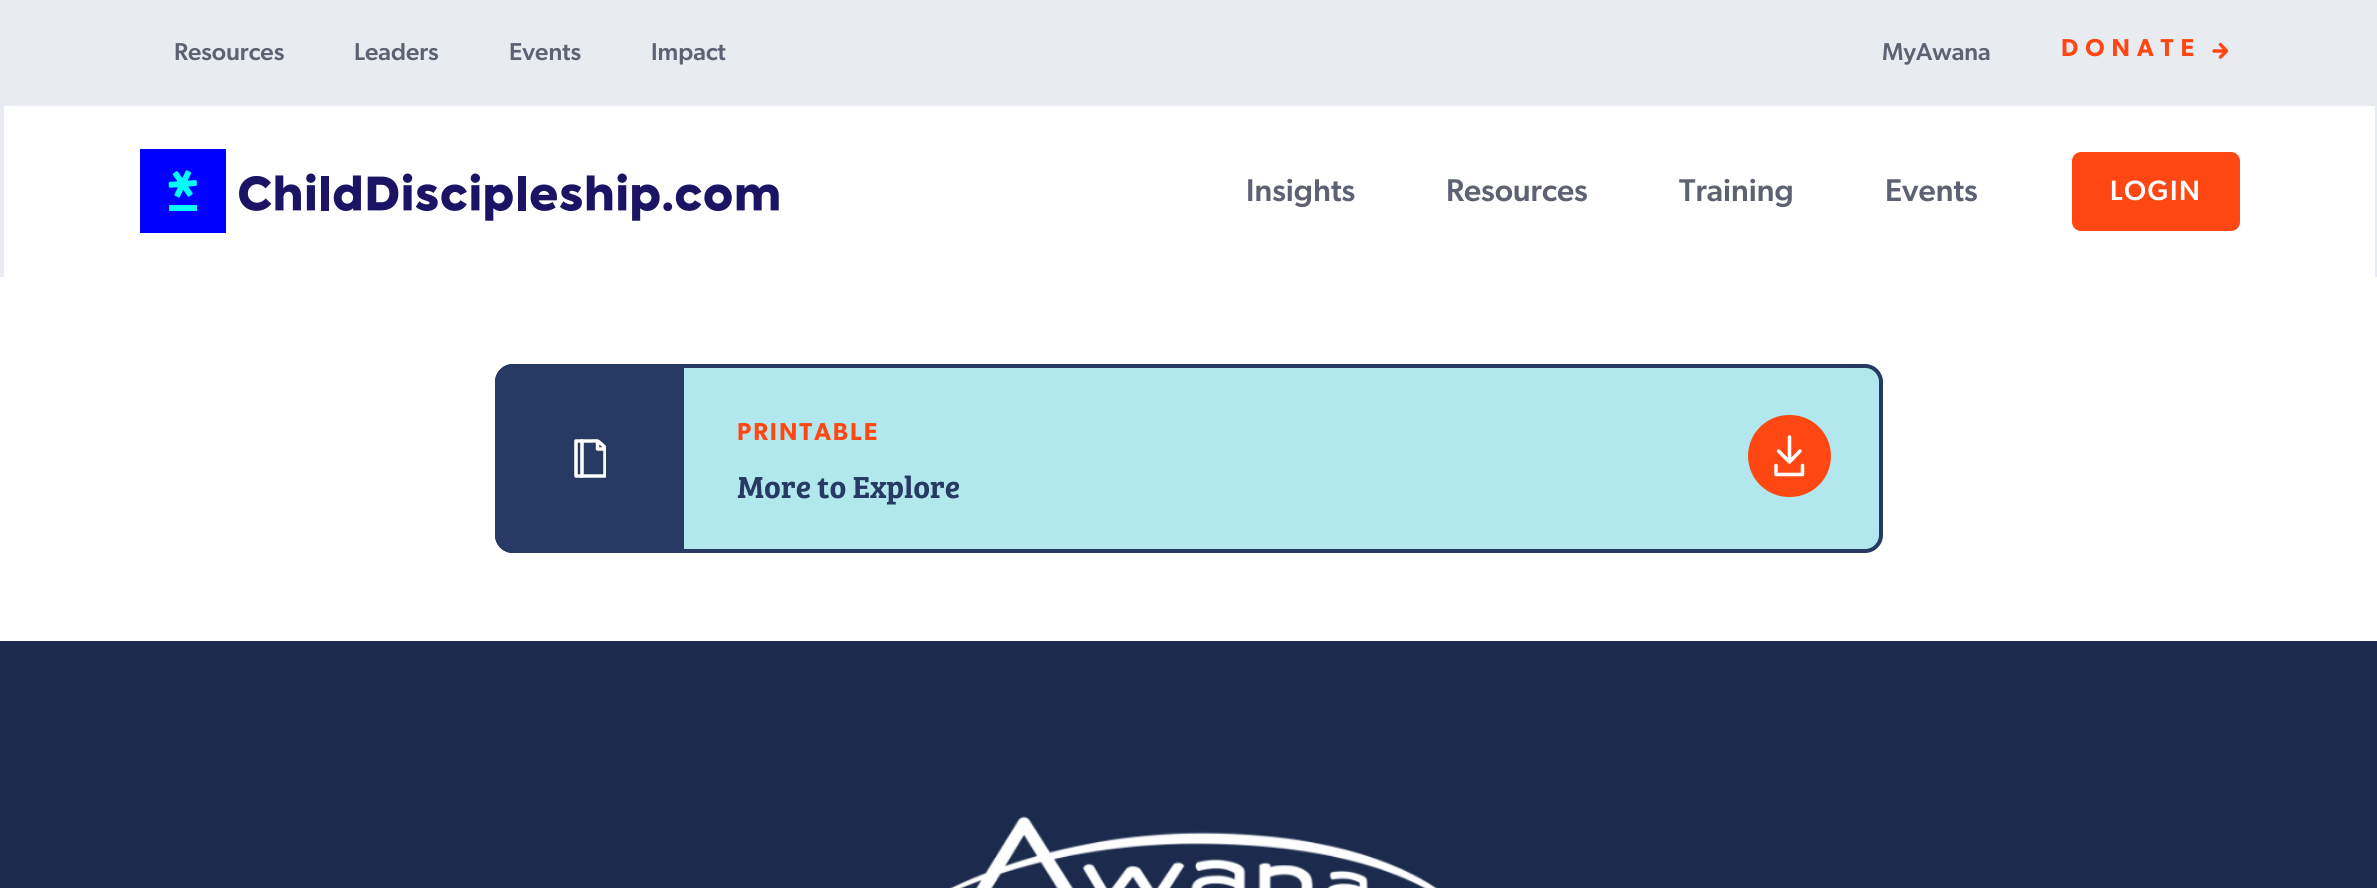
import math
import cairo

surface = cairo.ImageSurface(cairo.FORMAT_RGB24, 2377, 888)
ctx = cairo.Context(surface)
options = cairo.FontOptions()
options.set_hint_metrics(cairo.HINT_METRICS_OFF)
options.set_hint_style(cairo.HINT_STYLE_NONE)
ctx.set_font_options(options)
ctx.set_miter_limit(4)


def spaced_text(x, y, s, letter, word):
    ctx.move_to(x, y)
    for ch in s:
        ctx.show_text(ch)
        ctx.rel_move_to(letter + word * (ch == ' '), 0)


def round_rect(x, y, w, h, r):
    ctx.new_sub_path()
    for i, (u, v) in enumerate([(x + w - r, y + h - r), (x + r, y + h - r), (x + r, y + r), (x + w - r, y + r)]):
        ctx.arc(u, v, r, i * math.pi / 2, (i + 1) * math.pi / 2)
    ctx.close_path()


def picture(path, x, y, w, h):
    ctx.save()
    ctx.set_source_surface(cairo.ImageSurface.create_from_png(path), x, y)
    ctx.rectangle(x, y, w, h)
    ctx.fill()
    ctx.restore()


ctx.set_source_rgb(1, 1, 1)
ctx.paint()
ctx.set_source_rgb(0.91, 0.922, 0.945)
ctx.rectangle(0, 0, 2377, 102)
ctx.fill()
ctx.select_font_face("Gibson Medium")
ctx.set_font_size(24.5)
ctx.set_source_rgb(0.365, 0.384, 0.447)
ctx.move_to(174, 60)
ctx.show_text("Resources")
ctx.move_to(354, 60)
ctx.show_text("Leaders")
ctx.move_to(509, 60)
ctx.show_text("Events")
ctx.move_to(651, 60)
ctx.show_text("Impact")
ctx.move_to(1882, 60)
ctx.show_text("MyAwana")
ctx.select_font_face("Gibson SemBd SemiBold")
ctx.set_source_rgb(1, 0.278, 0.075)
spaced_text(2061, 56, "DONATE", 7, 0)
ctx.new_path()
ctx.move_to(2214, 51)
ctx.line_to(2226.5, 51)
ctx.move_to(2220.5, 44.5)
ctx.line_to(2226.5, 51)
ctx.line_to(2220.5, 57)
ctx.set_line_width(3.5)
ctx.set_line_cap(cairo.LINE_CAP_ROUND)
ctx.set_line_join(cairo.LINE_JOIN_ROUND)
ctx.stroke()
ctx.set_source_rgb(0.91, 0.925, 0.949)
ctx.rectangle(0, 102, 2377, 4)
ctx.fill()
ctx.rectangle(2375, 102, 2, 175)
ctx.fill()
ctx.rectangle(0, 102, 4, 175)
ctx.fill()
picture("img1.png", 140, 149, 639, 84)
ctx.select_font_face("Gibson Medium")
ctx.set_font_size(31.5)
ctx.set_source_rgb(0.365, 0.384, 0.447)
ctx.move_to(1246, 201)
ctx.show_text("Insights")
ctx.move_to(1446, 201)
ctx.show_text("Resources")
ctx.move_to(1679, 201)
ctx.show_text("Training")
ctx.move_to(1885, 201)
ctx.show_text("Events")
ctx.set_source_rgb(1, 0.278, 0.075)
round_rect(2072, 152, 168, 79, 9)
ctx.fill()
ctx.set_font_size(28)
ctx.set_source_rgb(1, 1, 1)
spaced_text(2110, 200, "LOGIN", 1.5, 0)
ctx.set_source_rgb(0.698, 0.91, 0.929)
round_rect(497, 366, 1384, 185, 16)
ctx.fill_preserve()
ctx.set_source_rgb(0.149, 0.227, 0.388)
ctx.set_line_width(4)
ctx.set_line_cap(cairo.LINE_CAP_BUTT)
ctx.set_line_join(cairo.LINE_JOIN_MITER)
ctx.stroke()
ctx.new_path()
ctx.move_to(513, 364)
ctx.line_to(684, 364)
ctx.line_to(684, 553)
ctx.line_to(513, 553)
ctx.curve_to(503, 553, 495, 545, 495, 535)
ctx.line_to(495, 382)
ctx.curve_to(495, 372, 503, 364, 513, 364)
ctx.close_path()
ctx.fill()
ctx.save()
ctx.rectangle(574, 439, 32, 39)
ctx.clip()
ctx.new_path()
ctx.move_to(605, 448.5)
ctx.line_to(605, 476)
ctx.line_to(576, 476)
ctx.line_to(576, 441)
ctx.line_to(590, 441)
ctx.curve_to(598.5, 441, 597, 440, 602.5, 445)
ctx.curve_to(603.5, 446, 605, 447, 605, 448.5)
ctx.close_path()
ctx.move_to(597.5, 441)
ctx.line_to(597.5, 449)
ctx.line_to(605, 449)
ctx.set_source_rgb(1, 1, 1)
ctx.set_line_width(3.5)
ctx.set_line_cap(cairo.LINE_CAP_ROUND)
ctx.set_line_join(cairo.LINE_JOIN_ROUND)
ctx.stroke()
ctx.restore()
ctx.new_path()
ctx.move_to(582, 441)
ctx.line_to(582, 476)
ctx.set_source_rgb(1, 1, 1)
ctx.set_line_width(3.5)
ctx.set_line_cap(cairo.LINE_CAP_ROUND)
ctx.set_line_join(cairo.LINE_JOIN_ROUND)
ctx.stroke()
ctx.select_font_face("Gibson SemBd SemiBold")
ctx.set_font_size(24.5)
ctx.set_source_rgb(1, 0.278, 0.075)
spaced_text(737, 440, "PRINTABLE", 2, 0)
ctx.select_font_face("Bree Serif SemiBold")
ctx.set_font_size(31.5)
ctx.set_source_rgb(0.149, 0.227, 0.388)
ctx.move_to(737, 498)
ctx.show_text("More to Explore")
ctx.set_source_rgb(1, 0.278, 0.075)
round_rect(1748, 415, 83, 82, 41)
ctx.fill()
ctx.new_path()
ctx.move_to(1776, 465.5)
ctx.line_to(1776, 474.5)
ctx.line_to(1802.5, 474.5)
ctx.line_to(1802.5, 465.5)
ctx.line_to(1802.5, 474.5)
ctx.line_to(1776, 474.5)
ctx.close_path()
ctx.move_to(1789.5, 462)
ctx.line_to(1800, 451)
ctx.line_to(1789.5, 462)
ctx.line_to(1778.5, 451)
ctx.close_path()
ctx.move_to(1789.5, 437)
ctx.line_to(1789.5, 460.5)
ctx.close_path()
ctx.set_source_rgb(1, 1, 1)
ctx.stroke()
ctx.set_source_rgb(0.11, 0.169, 0.302)
ctx.rectangle(0, 641, 2377, 247)
ctx.fill()
picture("img2.png", 949, 816, 489, 72)
surface.write_to_png("page.png")
